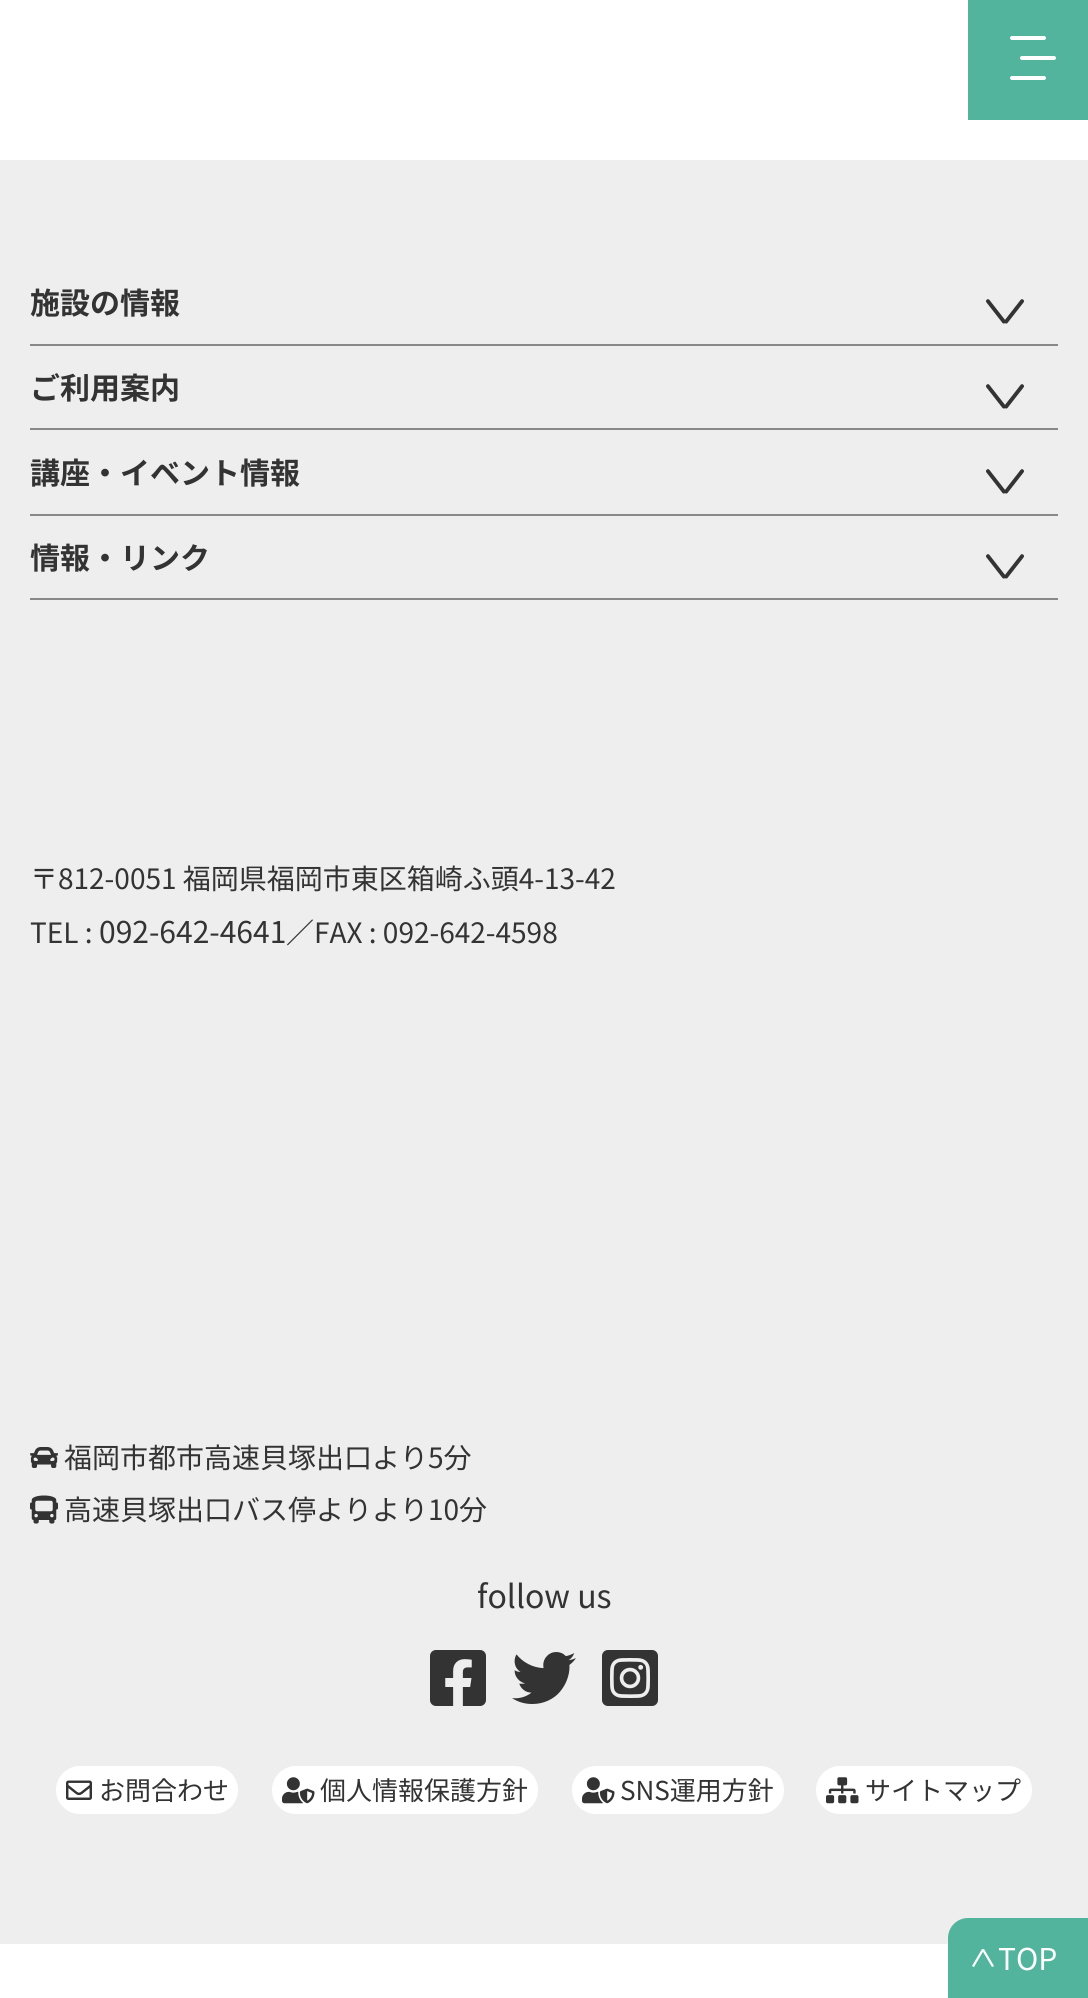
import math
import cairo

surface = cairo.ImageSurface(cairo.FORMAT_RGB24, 1088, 1998)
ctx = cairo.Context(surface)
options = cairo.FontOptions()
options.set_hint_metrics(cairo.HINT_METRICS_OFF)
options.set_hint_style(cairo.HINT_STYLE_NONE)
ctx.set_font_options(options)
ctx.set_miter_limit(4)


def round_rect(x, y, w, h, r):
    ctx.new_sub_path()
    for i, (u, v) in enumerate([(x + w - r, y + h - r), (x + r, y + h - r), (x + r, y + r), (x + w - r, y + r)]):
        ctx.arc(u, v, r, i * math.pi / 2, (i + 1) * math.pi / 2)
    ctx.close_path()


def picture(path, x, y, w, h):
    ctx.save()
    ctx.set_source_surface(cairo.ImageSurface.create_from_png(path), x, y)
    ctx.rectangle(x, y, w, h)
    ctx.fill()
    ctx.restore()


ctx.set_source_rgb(1, 1, 1)
ctx.paint()
ctx.set_source_rgb(0.325, 0.706, 0.616)
ctx.rectangle(968, 0, 120, 120)
ctx.fill()
ctx.set_source_rgb(1, 1, 1)
round_rect(1010, 36, 36, 4, 2)
ctx.fill()
round_rect(1020, 56, 36, 4, 2)
ctx.fill()
round_rect(1010, 76, 36, 4, 2)
ctx.fill()
ctx.set_source_rgb(0.933, 0.933, 0.933)
ctx.rectangle(0, 160, 1088, 1784)
ctx.fill()
ctx.select_font_face("Noto Sans JP", cairo.FONT_SLANT_NORMAL, cairo.FONT_WEIGHT_BOLD)
ctx.set_font_size(30)
ctx.set_source_rgb(0.2, 0.2, 0.2)
ctx.move_to(30, 314)
ctx.show_text("施設の情報")
ctx.set_source_rgb(0.533, 0.533, 0.533)
ctx.rectangle(30, 344, 1028, 2)
ctx.fill()
ctx.set_source_rgb(0.2, 0.2, 0.2)
ctx.new_path()
ctx.move_to(1023, 299.5)
ctx.curve_to(1024, 300, 1024.5, 301.5, 1023.5, 302.5)
ctx.line_to(1007.5, 323)
ctx.curve_to(1007, 323.5, 1005.5, 324, 1005, 323)
ctx.curve_to(1004, 322.5, 1003.5, 321.5, 1004.5, 320.5)
ctx.line_to(1020.5, 300)
ctx.curve_to(1021, 299, 1022.5, 299, 1023, 299.5)
ctx.close_path()
ctx.fill()
ctx.new_path()
ctx.move_to(987, 299.5)
ctx.curve_to(987.5, 299, 989, 299, 989.5, 300)
ctx.line_to(1005.5, 320.5)
ctx.curve_to(1006.5, 321.5, 1006, 322.5, 1005, 323)
ctx.curve_to(1004.5, 324, 1003, 323.5, 1002.5, 323)
ctx.line_to(986.5, 302.5)
ctx.curve_to(985.5, 301.5, 986, 300, 987, 299.5)
ctx.close_path()
ctx.fill()
ctx.move_to(30, 399)
ctx.show_text("ご利用案内")
ctx.set_source_rgb(0.533, 0.533, 0.533)
ctx.rectangle(30, 428, 1028, 2)
ctx.fill()
ctx.set_source_rgb(0.2, 0.2, 0.2)
ctx.new_path()
ctx.move_to(1023, 384.5)
ctx.curve_to(1024, 385, 1024.5, 386.5, 1023.5, 387.5)
ctx.line_to(1007.5, 408)
ctx.curve_to(1007, 408.5, 1005.5, 409, 1005, 408)
ctx.curve_to(1004, 407.5, 1003.5, 406.5, 1004.5, 405.5)
ctx.line_to(1020.5, 385)
ctx.curve_to(1021, 384, 1022.5, 384, 1023, 384.5)
ctx.close_path()
ctx.fill()
ctx.new_path()
ctx.move_to(987, 384.5)
ctx.curve_to(987.5, 384, 989, 384, 989.5, 385)
ctx.line_to(1005.5, 405.5)
ctx.curve_to(1006.5, 406.5, 1006, 407.5, 1005, 408)
ctx.curve_to(1004.5, 409, 1003, 408.5, 1002.5, 408)
ctx.line_to(986.5, 387.5)
ctx.curve_to(985.5, 386.5, 986, 385, 987, 384.5)
ctx.close_path()
ctx.fill()
ctx.move_to(30, 484)
ctx.show_text("講座・イベント情報")
ctx.set_source_rgb(0.533, 0.533, 0.533)
ctx.rectangle(30, 514, 1028, 2)
ctx.fill()
ctx.set_source_rgb(0.2, 0.2, 0.2)
ctx.new_path()
ctx.move_to(1023, 469.5)
ctx.curve_to(1024, 470, 1024.5, 471.5, 1023.5, 472.5)
ctx.line_to(1007.5, 493)
ctx.curve_to(1007, 493.5, 1005.5, 494, 1005, 493)
ctx.curve_to(1004, 492.5, 1003.5, 491.5, 1004.5, 490.5)
ctx.line_to(1020.5, 470)
ctx.curve_to(1021, 469, 1022.5, 469, 1023, 469.5)
ctx.close_path()
ctx.fill()
ctx.new_path()
ctx.move_to(987, 469.5)
ctx.curve_to(987.5, 469, 989, 469, 989.5, 470)
ctx.line_to(1005.5, 490.5)
ctx.curve_to(1006.5, 491.5, 1006, 492.5, 1005, 493)
ctx.curve_to(1004.5, 494, 1003, 493.5, 1002.5, 493)
ctx.line_to(986.5, 472.5)
ctx.curve_to(985.5, 471.5, 986, 470, 987, 469.5)
ctx.close_path()
ctx.fill()
ctx.move_to(30, 569)
ctx.show_text("情報・リンク")
ctx.set_source_rgb(0.533, 0.533, 0.533)
ctx.rectangle(30, 598, 1028, 2)
ctx.fill()
ctx.set_source_rgb(0.2, 0.2, 0.2)
ctx.new_path()
ctx.move_to(1023, 554.5)
ctx.curve_to(1024, 555, 1024.5, 556.5, 1023.5, 557.5)
ctx.line_to(1007.5, 578)
ctx.curve_to(1007, 578.5, 1005.5, 579, 1005, 578)
ctx.curve_to(1004, 577.5, 1003.5, 576.5, 1004.5, 575.5)
ctx.line_to(1020.5, 555)
ctx.curve_to(1021, 554, 1022.5, 554, 1023, 554.5)
ctx.close_path()
ctx.fill()
ctx.new_path()
ctx.move_to(987, 554.5)
ctx.curve_to(987.5, 554, 989, 554, 989.5, 555)
ctx.line_to(1005.5, 575.5)
ctx.curve_to(1006.5, 576.5, 1006, 577.5, 1005, 578)
ctx.curve_to(1004.5, 579, 1003, 578.5, 1002.5, 578)
ctx.line_to(986.5, 557.5)
ctx.curve_to(985.5, 556.5, 986, 555, 987, 554.5)
ctx.close_path()
ctx.fill()
ctx.select_font_face("Noto Sans JP")
ctx.set_font_size(28)
ctx.move_to(30, 889)
ctx.show_text("〒812-0051 福岡県福岡市東区箱崎ふ頭4-13-42")
ctx.move_to(30, 943)
ctx.show_text("TEL :")
ctx.set_font_size(30)
ctx.move_to(99, 943)
ctx.show_text("092-642-4641")
ctx.set_font_size(28)
ctx.move_to(286, 943)
ctx.show_text("／FAX : 092-642-4598")
picture("img1.png", 30, 1447, 28, 21)
ctx.move_to(64, 1468)
ctx.show_text("福岡市都市高速貝塚出口より5分")
picture("img2.png", 30, 1495, 28, 29)
ctx.move_to(64, 1520)
ctx.show_text("高速貝塚出口バス停よりより10分")
ctx.set_font_size(32)
ctx.move_to(477, 1608)
ctx.show_text("follow us")
picture("img3.png", 430, 1650, 56, 56)
picture("img4.png", 512, 1652, 64, 52)
picture("img5.png", 602, 1650, 56, 56)
ctx.set_source_rgb(1, 1, 1)
round_rect(56, 1766, 182, 48, 24)
ctx.fill()
picture("img6.png", 66, 1780, 26, 20)
ctx.set_font_size(26)
ctx.set_source_rgb(0.2, 0.2, 0.2)
ctx.move_to(99, 1800)
ctx.show_text("お問合わせ")
ctx.set_source_rgb(1, 1, 1)
round_rect(272, 1766, 266, 48, 24)
ctx.fill()
picture("img7.png", 282, 1777, 33, 27)
ctx.set_source_rgb(0.2, 0.2, 0.2)
ctx.move_to(320, 1800)
ctx.show_text("個人情報保護方針")
ctx.set_source_rgb(1, 1, 1)
round_rect(572, 1766, 212, 48, 24)
ctx.fill()
picture("img7.png", 582, 1777, 33, 27)
ctx.set_source_rgb(0.2, 0.2, 0.2)
ctx.move_to(620, 1800)
ctx.show_text("SNS運用方針")
ctx.set_source_rgb(1, 1, 1)
round_rect(816, 1766, 216, 48, 24)
ctx.fill()
picture("img8.png", 826, 1777, 33, 27)
ctx.set_source_rgb(0.2, 0.2, 0.2)
ctx.move_to(865, 1800)
ctx.show_text("サイトマップ")
ctx.set_source_rgb(0.325, 0.706, 0.616)
ctx.new_path()
ctx.move_to(968, 1918)
ctx.line_to(1088, 1918)
ctx.line_to(1088, 1998)
ctx.line_to(948, 1998)
ctx.line_to(948, 1938)
ctx.curve_to(948, 1927, 957, 1918, 968, 1918)
ctx.close_path()
ctx.fill()
ctx.set_source_rgb(1, 1, 1)
ctx.new_path()
ctx.move_to(984, 1949)
ctx.line_to(994, 1966)
ctx.line_to(992, 1967)
ctx.line_to(982, 1950)
ctx.close_path()
ctx.fill()
ctx.new_path()
ctx.move_to(972, 1966)
ctx.line_to(982, 1949)
ctx.line_to(984, 1950)
ctx.line_to(974, 1967)
ctx.close_path()
ctx.fill()
ctx.set_font_size(30)
ctx.move_to(998, 1970)
ctx.show_text("TOP")
surface.write_to_png("page.png")
